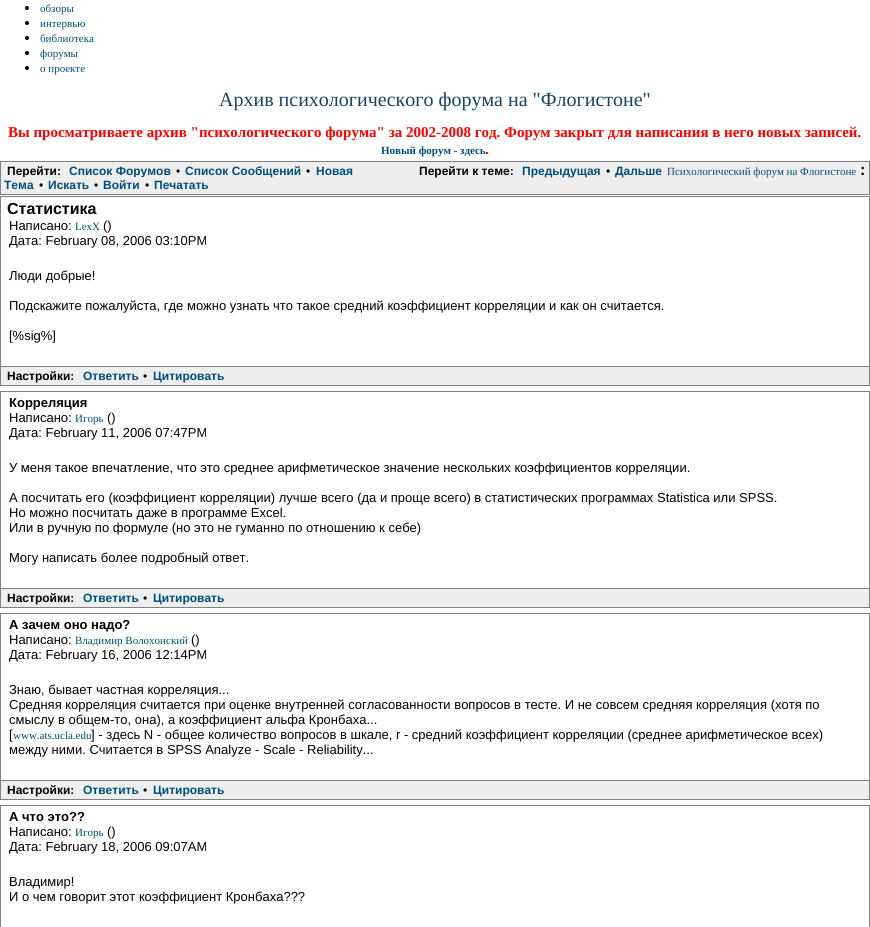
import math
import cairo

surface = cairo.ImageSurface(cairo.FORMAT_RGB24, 870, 927)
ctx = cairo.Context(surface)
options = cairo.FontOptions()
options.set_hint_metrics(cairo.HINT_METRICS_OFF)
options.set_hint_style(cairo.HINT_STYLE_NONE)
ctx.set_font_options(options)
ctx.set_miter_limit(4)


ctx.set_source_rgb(1, 1, 1)
ctx.paint()
ctx.set_source_rgb(0, 0, 0)
ctx.arc(27, 8, 2, 0, 2 * math.pi)
ctx.fill()
ctx.select_font_face("Liberation Serif")
ctx.set_font_size(11)
ctx.set_source_rgb(0, 0.306, 0.482)
ctx.move_to(40, 12)
ctx.show_text("обзоры")
ctx.set_source_rgb(0, 0, 0)
ctx.new_path()
ctx.arc(27, 23, 2, 0, 2 * math.pi)
ctx.fill()
ctx.set_source_rgb(0, 0.306, 0.482)
ctx.move_to(40, 27)
ctx.show_text("интервью")
ctx.set_source_rgb(0, 0, 0)
ctx.new_path()
ctx.arc(27, 38, 2, 0, 2 * math.pi)
ctx.fill()
ctx.set_source_rgb(0, 0.306, 0.482)
ctx.move_to(40, 42)
ctx.show_text("библиотека")
ctx.set_source_rgb(0, 0, 0)
ctx.new_path()
ctx.arc(27, 53, 2, 0, 2 * math.pi)
ctx.fill()
ctx.set_source_rgb(0, 0.306, 0.482)
ctx.move_to(40, 57)
ctx.show_text("форумы")
ctx.set_source_rgb(0, 0, 0)
ctx.new_path()
ctx.arc(27, 68, 2, 0, 2 * math.pi)
ctx.fill()
ctx.set_source_rgb(0, 0.306, 0.482)
ctx.move_to(40, 72)
ctx.show_text("о проекте")
ctx.set_font_size(20)
ctx.set_source_rgb(0.094, 0.263, 0.384)
ctx.move_to(219, 106)
ctx.show_text("Архив психологического форума на \"Флогистоне\"")
ctx.select_font_face("Liberation Serif", cairo.FONT_SLANT_NORMAL, cairo.FONT_WEIGHT_BOLD)
ctx.set_font_size(15)
ctx.set_source_rgb(1, 0, 0)
ctx.move_to(8, 137)
ctx.show_text("Вы просматриваете архив \"психологического форума\" за 2002-2008 год. Форум закрыт для написания в него новых записей.")
ctx.set_font_size(11)
ctx.set_source_rgb(0, 0.306, 0.482)
ctx.move_to(381, 154)
ctx.show_text("Новый форум - здесь")
ctx.set_font_size(15)
ctx.set_source_rgb(1, 0, 0)
ctx.move_to(485, 154)
ctx.show_text(".")
ctx.set_source_rgb(0.933, 0.933, 0.933)
ctx.rectangle(0.5, 161.5, 869, 33)
ctx.fill_preserve()
ctx.set_source_rgb(0.502, 0.502, 0.502)
ctx.set_line_width(1)
ctx.stroke()
ctx.select_font_face("Liberation Sans", cairo.FONT_SLANT_NORMAL, cairo.FONT_WEIGHT_BOLD)
ctx.set_font_size(12)
ctx.set_source_rgb(0, 0, 0)
ctx.move_to(7, 175)
ctx.show_text("Перейти:")
ctx.set_source_rgb(0, 0.306, 0.482)
ctx.move_to(69, 175)
ctx.show_text("Список Форумов")
ctx.select_font_face("Liberation Sans")
ctx.set_source_rgb(0, 0, 0)
ctx.move_to(176, 175)
ctx.show_text("•")
ctx.select_font_face("Liberation Sans", cairo.FONT_SLANT_NORMAL, cairo.FONT_WEIGHT_BOLD)
ctx.set_source_rgb(0, 0.306, 0.482)
ctx.move_to(185, 175)
ctx.show_text("Список Сообщений")
ctx.select_font_face("Liberation Sans")
ctx.set_source_rgb(0, 0, 0)
ctx.move_to(306, 175)
ctx.show_text("•")
ctx.select_font_face("Liberation Sans", cairo.FONT_SLANT_NORMAL, cairo.FONT_WEIGHT_BOLD)
ctx.set_source_rgb(0, 0.306, 0.482)
ctx.move_to(316, 175)
ctx.show_text("Новая")
ctx.set_source_rgb(0, 0, 0)
ctx.move_to(419, 175)
ctx.show_text("Перейти к теме:")
ctx.set_source_rgb(0, 0.306, 0.482)
ctx.move_to(522, 175)
ctx.show_text("Предыдущая")
ctx.select_font_face("Liberation Sans")
ctx.set_source_rgb(0, 0, 0)
ctx.move_to(606, 175)
ctx.show_text("•")
ctx.select_font_face("Liberation Serif")
ctx.set_font_size(11)
ctx.set_source_rgb(0, 0.306, 0.482)
ctx.move_to(667, 175)
ctx.show_text("Психологический форум на Флогистоне")
ctx.rectangle(610.5, 163.5, 56, 15)
ctx.set_source_rgb(0.933, 0.933, 0.933)
ctx.stroke()
ctx.select_font_face("Liberation Sans", cairo.FONT_SLANT_NORMAL, cairo.FONT_WEIGHT_BOLD)
ctx.set_font_size(12)
ctx.set_source_rgb(0, 0.306, 0.482)
ctx.move_to(615, 175)
ctx.show_text("Дальше")
ctx.move_to(4, 189)
ctx.show_text("Тема")
ctx.set_source_rgb(0.933, 0.933, 0.933)
ctx.rectangle(23, 177, 2, 1)
ctx.fill()
ctx.select_font_face("Liberation Sans")
ctx.set_source_rgb(0, 0, 0)
ctx.move_to(39, 189)
ctx.show_text("•")
ctx.select_font_face("Liberation Sans", cairo.FONT_SLANT_NORMAL, cairo.FONT_WEIGHT_BOLD)
ctx.set_source_rgb(0, 0.306, 0.482)
ctx.move_to(48, 189)
ctx.show_text("Искать")
ctx.select_font_face("Liberation Sans")
ctx.set_source_rgb(0, 0, 0)
ctx.move_to(94, 189)
ctx.show_text("•")
ctx.rectangle(98.5, 177.5, 46, 15)
ctx.set_source_rgb(0.933, 0.933, 0.933)
ctx.stroke()
ctx.select_font_face("Liberation Sans", cairo.FONT_SLANT_NORMAL, cairo.FONT_WEIGHT_BOLD)
ctx.set_source_rgb(0, 0.306, 0.482)
ctx.move_to(103, 189)
ctx.show_text("Войти")
ctx.select_font_face("Liberation Sans")
ctx.set_source_rgb(0, 0, 0)
ctx.move_to(145, 189)
ctx.show_text("•")
ctx.select_font_face("Liberation Sans", cairo.FONT_SLANT_NORMAL, cairo.FONT_WEIGHT_BOLD)
ctx.set_source_rgb(0, 0.306, 0.482)
ctx.move_to(154, 189)
ctx.show_text("Печатать")
ctx.set_font_size(16)
ctx.set_source_rgb(0, 0, 0)
ctx.move_to(860, 175)
ctx.show_text(":")
ctx.rectangle(0.5, 196.5, 869, 170)
ctx.set_source_rgb(0.502, 0.502, 0.502)
ctx.stroke()
ctx.set_source_rgb(0, 0, 0)
ctx.move_to(7, 214)
ctx.show_text("Статистика")
ctx.select_font_face("Liberation Sans")
ctx.set_font_size(13)
ctx.move_to(9, 230)
ctx.show_text("Написано:")
ctx.select_font_face("Liberation Serif")
ctx.set_font_size(11)
ctx.set_source_rgb(0, 0.306, 0.482)
ctx.move_to(75, 230)
ctx.show_text("LexX")
ctx.select_font_face("Liberation Sans")
ctx.set_font_size(13)
ctx.set_source_rgb(0, 0, 0)
ctx.move_to(103, 230)
ctx.show_text("()")
ctx.move_to(9, 245)
ctx.show_text("Дата: February 08, 2006 03:10PM")
ctx.move_to(9, 280)
ctx.show_text("Люди добрые!")
ctx.move_to(9, 310)
ctx.show_text("Подскажите пожалуйста, где можно узнать что такое средний коэффициент корреляции и как он считается.")
ctx.move_to(9, 340)
ctx.show_text("[%sig%]")
ctx.set_source_rgb(0.933, 0.933, 0.933)
ctx.rectangle(1, 367, 868, 18)
ctx.fill()
ctx.set_source_rgb(0.502, 0.502, 0.502)
ctx.rectangle(869, 367, 1, 19)
ctx.fill()
ctx.rectangle(0, 385, 870, 1)
ctx.fill()
ctx.rectangle(0, 367, 1, 19)
ctx.fill()
ctx.select_font_face("Liberation Sans", cairo.FONT_SLANT_NORMAL, cairo.FONT_WEIGHT_BOLD)
ctx.set_font_size(12)
ctx.set_source_rgb(0, 0, 0)
ctx.move_to(7, 380)
ctx.show_text("Настройки:")
ctx.set_source_rgb(0, 0.306, 0.482)
ctx.move_to(83, 380)
ctx.show_text("Ответить")
ctx.select_font_face("Liberation Sans")
ctx.set_source_rgb(0, 0, 0)
ctx.move_to(143, 380)
ctx.show_text("•")
ctx.select_font_face("Liberation Sans", cairo.FONT_SLANT_NORMAL, cairo.FONT_WEIGHT_BOLD)
ctx.set_source_rgb(0, 0.306, 0.482)
ctx.move_to(153, 380)
ctx.show_text("Цитировать")
ctx.rectangle(0.5, 391.5, 869, 197)
ctx.set_source_rgb(0.502, 0.502, 0.502)
ctx.stroke()
ctx.set_font_size(13)
ctx.set_source_rgb(0, 0, 0)
ctx.move_to(9, 407)
ctx.show_text("Корреляция")
ctx.select_font_face("Liberation Sans")
ctx.move_to(9, 422)
ctx.show_text("Написано:")
ctx.select_font_face("Liberation Serif")
ctx.set_font_size(11)
ctx.set_source_rgb(0, 0.306, 0.482)
ctx.move_to(75, 422)
ctx.show_text("Игорь")
ctx.select_font_face("Liberation Sans")
ctx.set_font_size(13)
ctx.set_source_rgb(0, 0, 0)
ctx.move_to(107, 422)
ctx.show_text("()")
ctx.move_to(9, 437)
ctx.show_text("Дата: February 11, 2006 07:47PM")
ctx.move_to(9, 472)
ctx.show_text("У меня такое впечатление, что это среднее арифметическое значение нескольких коэффициентов корреляции.")
ctx.move_to(9, 502)
ctx.show_text("А посчитать его (коэффициент корреляции) лучше всего (да и проще всего) в статистических программах Statistica или SPSS.")
ctx.move_to(9, 517)
ctx.show_text("Но можно посчитать даже в программе Excel.")
ctx.move_to(9, 532)
ctx.show_text("Или в ручную по формуле (но это не гуманно по отношению к себе)")
ctx.move_to(9, 562)
ctx.show_text("Могу написать более подробный ответ.")
ctx.set_source_rgb(0.933, 0.933, 0.933)
ctx.rectangle(1, 589, 868, 18)
ctx.fill()
ctx.set_source_rgb(0.502, 0.502, 0.502)
ctx.rectangle(869, 589, 1, 19)
ctx.fill()
ctx.rectangle(0, 607, 870, 1)
ctx.fill()
ctx.rectangle(0, 589, 1, 19)
ctx.fill()
ctx.select_font_face("Liberation Sans", cairo.FONT_SLANT_NORMAL, cairo.FONT_WEIGHT_BOLD)
ctx.set_font_size(12)
ctx.set_source_rgb(0, 0, 0)
ctx.move_to(7, 602)
ctx.show_text("Настройки:")
ctx.set_source_rgb(0, 0.306, 0.482)
ctx.move_to(83, 602)
ctx.show_text("Ответить")
ctx.select_font_face("Liberation Sans")
ctx.set_source_rgb(0, 0, 0)
ctx.move_to(143, 602)
ctx.show_text("•")
ctx.select_font_face("Liberation Sans", cairo.FONT_SLANT_NORMAL, cairo.FONT_WEIGHT_BOLD)
ctx.set_source_rgb(0, 0.306, 0.482)
ctx.move_to(153, 602)
ctx.show_text("Цитировать")
ctx.rectangle(0.5, 613.5, 869, 167)
ctx.set_source_rgb(0.502, 0.502, 0.502)
ctx.stroke()
ctx.set_font_size(13)
ctx.set_source_rgb(0, 0, 0)
ctx.move_to(9, 629)
ctx.show_text("А зачем оно надо?")
ctx.select_font_face("Liberation Sans")
ctx.move_to(9, 644)
ctx.show_text("Написано:")
ctx.select_font_face("Liberation Serif")
ctx.set_font_size(11)
ctx.set_source_rgb(0, 0.306, 0.482)
ctx.move_to(75, 644)
ctx.show_text("Владимир Волохонский")
ctx.select_font_face("Liberation Sans")
ctx.set_font_size(13)
ctx.set_source_rgb(0, 0, 0)
ctx.move_to(191, 644)
ctx.show_text("()")
ctx.move_to(9, 659)
ctx.show_text("Дата: February 16, 2006 12:14PM")
ctx.move_to(9, 694)
ctx.show_text("Знаю, бывает частная корреляция...")
ctx.move_to(9, 709)
ctx.show_text("Средняя корреляция считается при оценке внутренней согласованности вопросов в тесте. И не совсем средняя корреляция (хотя по")
ctx.move_to(9, 724)
ctx.show_text("смыслу в общем-то, она), а коэффициент альфа Кронбаха...")
ctx.move_to(9, 739)
ctx.show_text("[")
ctx.select_font_face("Liberation Serif")
ctx.set_font_size(11)
ctx.set_source_rgb(0, 0.306, 0.482)
ctx.move_to(13, 739)
ctx.show_text("www.ats.ucla.edu")
ctx.select_font_face("Liberation Sans")
ctx.set_font_size(13)
ctx.set_source_rgb(0, 0, 0)
ctx.move_to(91, 739)
ctx.show_text("] - здесь N - общее количество вопросов в шкале, r - средний коэффициент корреляции (среднее арифметическое всех)")
ctx.move_to(9, 754)
ctx.show_text("между ними. Считается в SPSS Analyze - Scale - Reliability...")
ctx.set_source_rgb(0.933, 0.933, 0.933)
ctx.rectangle(1, 781, 868, 18)
ctx.fill()
ctx.set_source_rgb(0.502, 0.502, 0.502)
ctx.rectangle(869, 781, 1, 19)
ctx.fill()
ctx.rectangle(0, 799, 870, 1)
ctx.fill()
ctx.rectangle(0, 781, 1, 19)
ctx.fill()
ctx.select_font_face("Liberation Sans", cairo.FONT_SLANT_NORMAL, cairo.FONT_WEIGHT_BOLD)
ctx.set_font_size(12)
ctx.set_source_rgb(0, 0, 0)
ctx.move_to(7, 794)
ctx.show_text("Настройки:")
ctx.set_source_rgb(0, 0.306, 0.482)
ctx.move_to(83, 794)
ctx.show_text("Ответить")
ctx.select_font_face("Liberation Sans")
ctx.set_source_rgb(0, 0, 0)
ctx.move_to(143, 794)
ctx.show_text("•")
ctx.select_font_face("Liberation Sans", cairo.FONT_SLANT_NORMAL, cairo.FONT_WEIGHT_BOLD)
ctx.set_source_rgb(0, 0.306, 0.482)
ctx.move_to(153, 794)
ctx.show_text("Цитировать")
ctx.rectangle(0.5, 805.5, 869, 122)
ctx.set_source_rgb(0.502, 0.502, 0.502)
ctx.stroke()
ctx.set_font_size(13)
ctx.set_source_rgb(0, 0, 0)
ctx.move_to(9, 821)
ctx.show_text("А что это??")
ctx.select_font_face("Liberation Sans")
ctx.move_to(9, 836)
ctx.show_text("Написано:")
ctx.select_font_face("Liberation Serif")
ctx.set_font_size(11)
ctx.set_source_rgb(0, 0.306, 0.482)
ctx.move_to(75, 836)
ctx.show_text("Игорь")
ctx.select_font_face("Liberation Sans")
ctx.set_font_size(13)
ctx.set_source_rgb(0, 0, 0)
ctx.move_to(107, 836)
ctx.show_text("()")
ctx.move_to(9, 851)
ctx.show_text("Дата: February 18, 2006 09:07AM")
ctx.move_to(9, 886)
ctx.show_text("Владимир!")
ctx.move_to(9, 901)
ctx.show_text("И о чем говорит этот коэффициент Кронбаха???")
surface.write_to_png("page.png")
